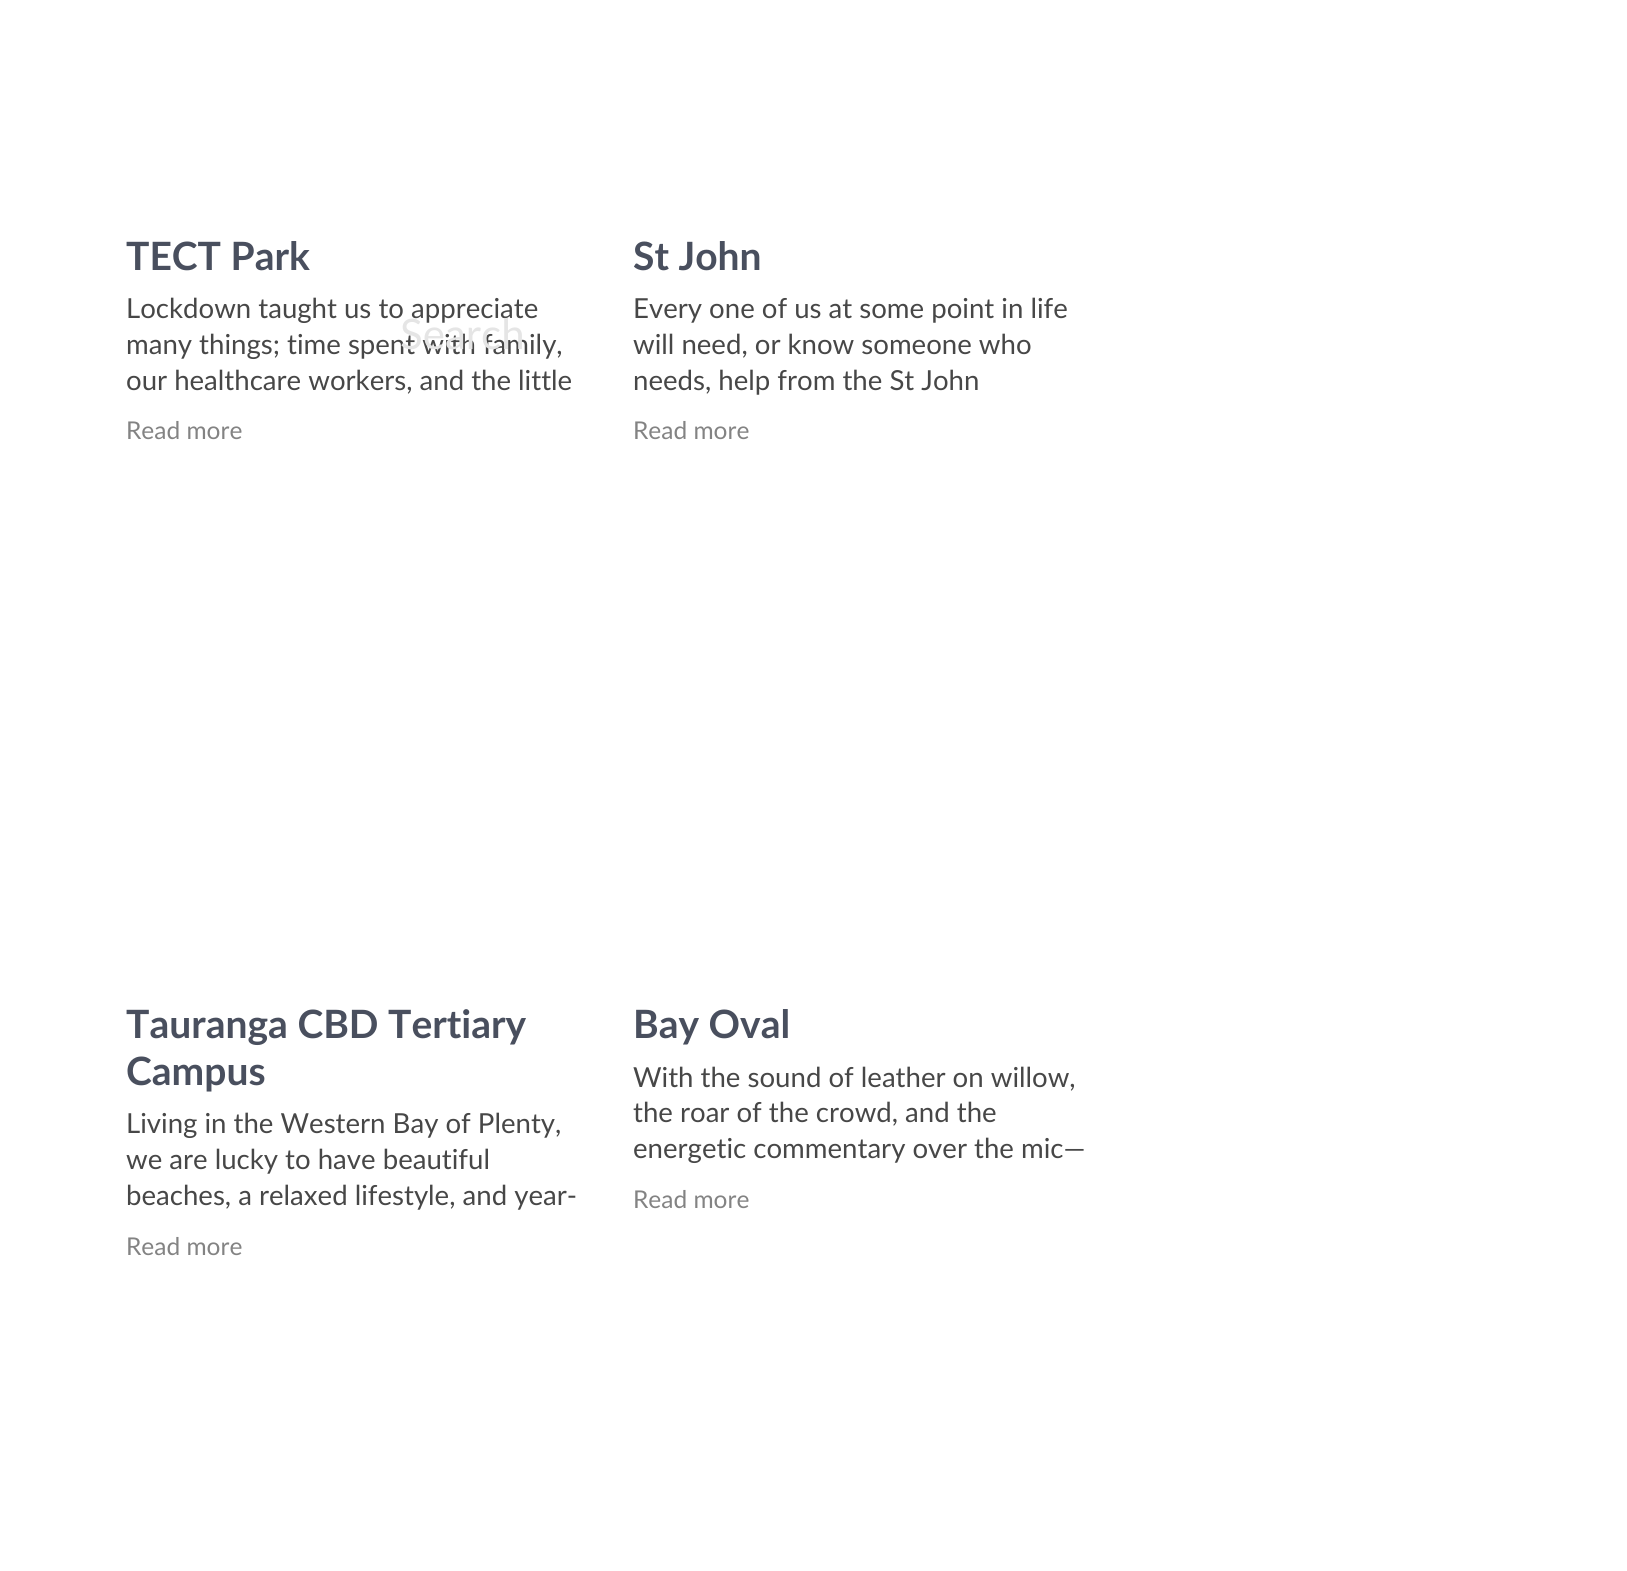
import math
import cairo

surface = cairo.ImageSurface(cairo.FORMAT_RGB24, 1627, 1571)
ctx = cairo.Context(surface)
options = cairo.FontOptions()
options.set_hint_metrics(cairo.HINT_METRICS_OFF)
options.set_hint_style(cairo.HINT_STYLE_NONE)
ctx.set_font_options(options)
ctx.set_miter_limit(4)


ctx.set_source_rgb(1, 1, 1)
ctx.paint()
ctx.select_font_face("Lato", cairo.FONT_SLANT_NORMAL, cairo.FONT_WEIGHT_BOLD)
ctx.set_font_size(39)
ctx.set_source_rgb(0.286, 0.31, 0.369)
ctx.move_to(126, 270)
ctx.show_text("TECT Park")
ctx.select_font_face("Lato")
ctx.set_font_size(27.6)
ctx.set_source_rgb(0.278, 0.278, 0.278)
ctx.move_to(126, 318)
ctx.show_text("Lockdown taught us to appreciate")
ctx.move_to(126, 354)
ctx.show_text("many things; time spent with family,")
ctx.move_to(126, 390)
ctx.show_text("our healthcare workers, and the little")
ctx.set_font_size(24.5)
ctx.set_source_rgb(0.514, 0.514, 0.514)
ctx.move_to(126, 439)
ctx.show_text("Read more")
ctx.select_font_face("Lato", cairo.FONT_SLANT_NORMAL, cairo.FONT_WEIGHT_BOLD)
ctx.set_font_size(39)
ctx.set_source_rgb(0.286, 0.31, 0.369)
ctx.move_to(633, 270)
ctx.show_text("St John")
ctx.select_font_face("Lato")
ctx.set_font_size(27.6)
ctx.set_source_rgb(0.278, 0.278, 0.278)
ctx.move_to(633, 318)
ctx.show_text("Every one of us at some point in life")
ctx.move_to(633, 354)
ctx.show_text("will need, or know someone who")
ctx.move_to(633, 390)
ctx.show_text("needs, help from the St John")
ctx.set_font_size(24.5)
ctx.set_source_rgb(0.514, 0.514, 0.514)
ctx.move_to(633, 439)
ctx.show_text("Read more")
ctx.select_font_face("Lato", cairo.FONT_SLANT_NORMAL, cairo.FONT_WEIGHT_BOLD)
ctx.set_font_size(39)
ctx.set_source_rgb(0.286, 0.31, 0.369)
ctx.move_to(126, 1038)
ctx.show_text("Tauranga CBD Tertiary")
ctx.move_to(126, 1085)
ctx.show_text("Campus")
ctx.select_font_face("Lato")
ctx.set_font_size(27.6)
ctx.set_source_rgb(0.278, 0.278, 0.278)
ctx.move_to(126, 1133)
ctx.show_text("Living in the Western Bay of Plenty,")
ctx.move_to(126, 1169)
ctx.show_text("we are lucky to have beautiful")
ctx.move_to(126, 1205)
ctx.show_text("beaches, a relaxed lifestyle, and year-")
ctx.set_font_size(24.5)
ctx.set_source_rgb(0.514, 0.514, 0.514)
ctx.move_to(126, 1255)
ctx.show_text("Read more")
ctx.select_font_face("Lato", cairo.FONT_SLANT_NORMAL, cairo.FONT_WEIGHT_BOLD)
ctx.set_font_size(39)
ctx.set_source_rgb(0.286, 0.31, 0.369)
ctx.move_to(633, 1038)
ctx.show_text("Bay Oval")
ctx.select_font_face("Lato")
ctx.set_font_size(27.6)
ctx.set_source_rgb(0.278, 0.278, 0.278)
ctx.move_to(633, 1087)
ctx.show_text("With the sound of leather on willow,")
ctx.move_to(633, 1122)
ctx.show_text("the roar of the crowd, and the")
ctx.move_to(633, 1158)
ctx.show_text("energetic commentary over the mic—")
ctx.set_font_size(24.5)
ctx.set_source_rgb(0.514, 0.514, 0.514)
ctx.move_to(633, 1208)
ctx.show_text("Read more")
ctx.set_font_size(42)
ctx.set_source_rgb(0.898, 0.898, 0.898)
ctx.move_to(400, 349)
ctx.show_text("Search")
surface.write_to_png("page.png")
